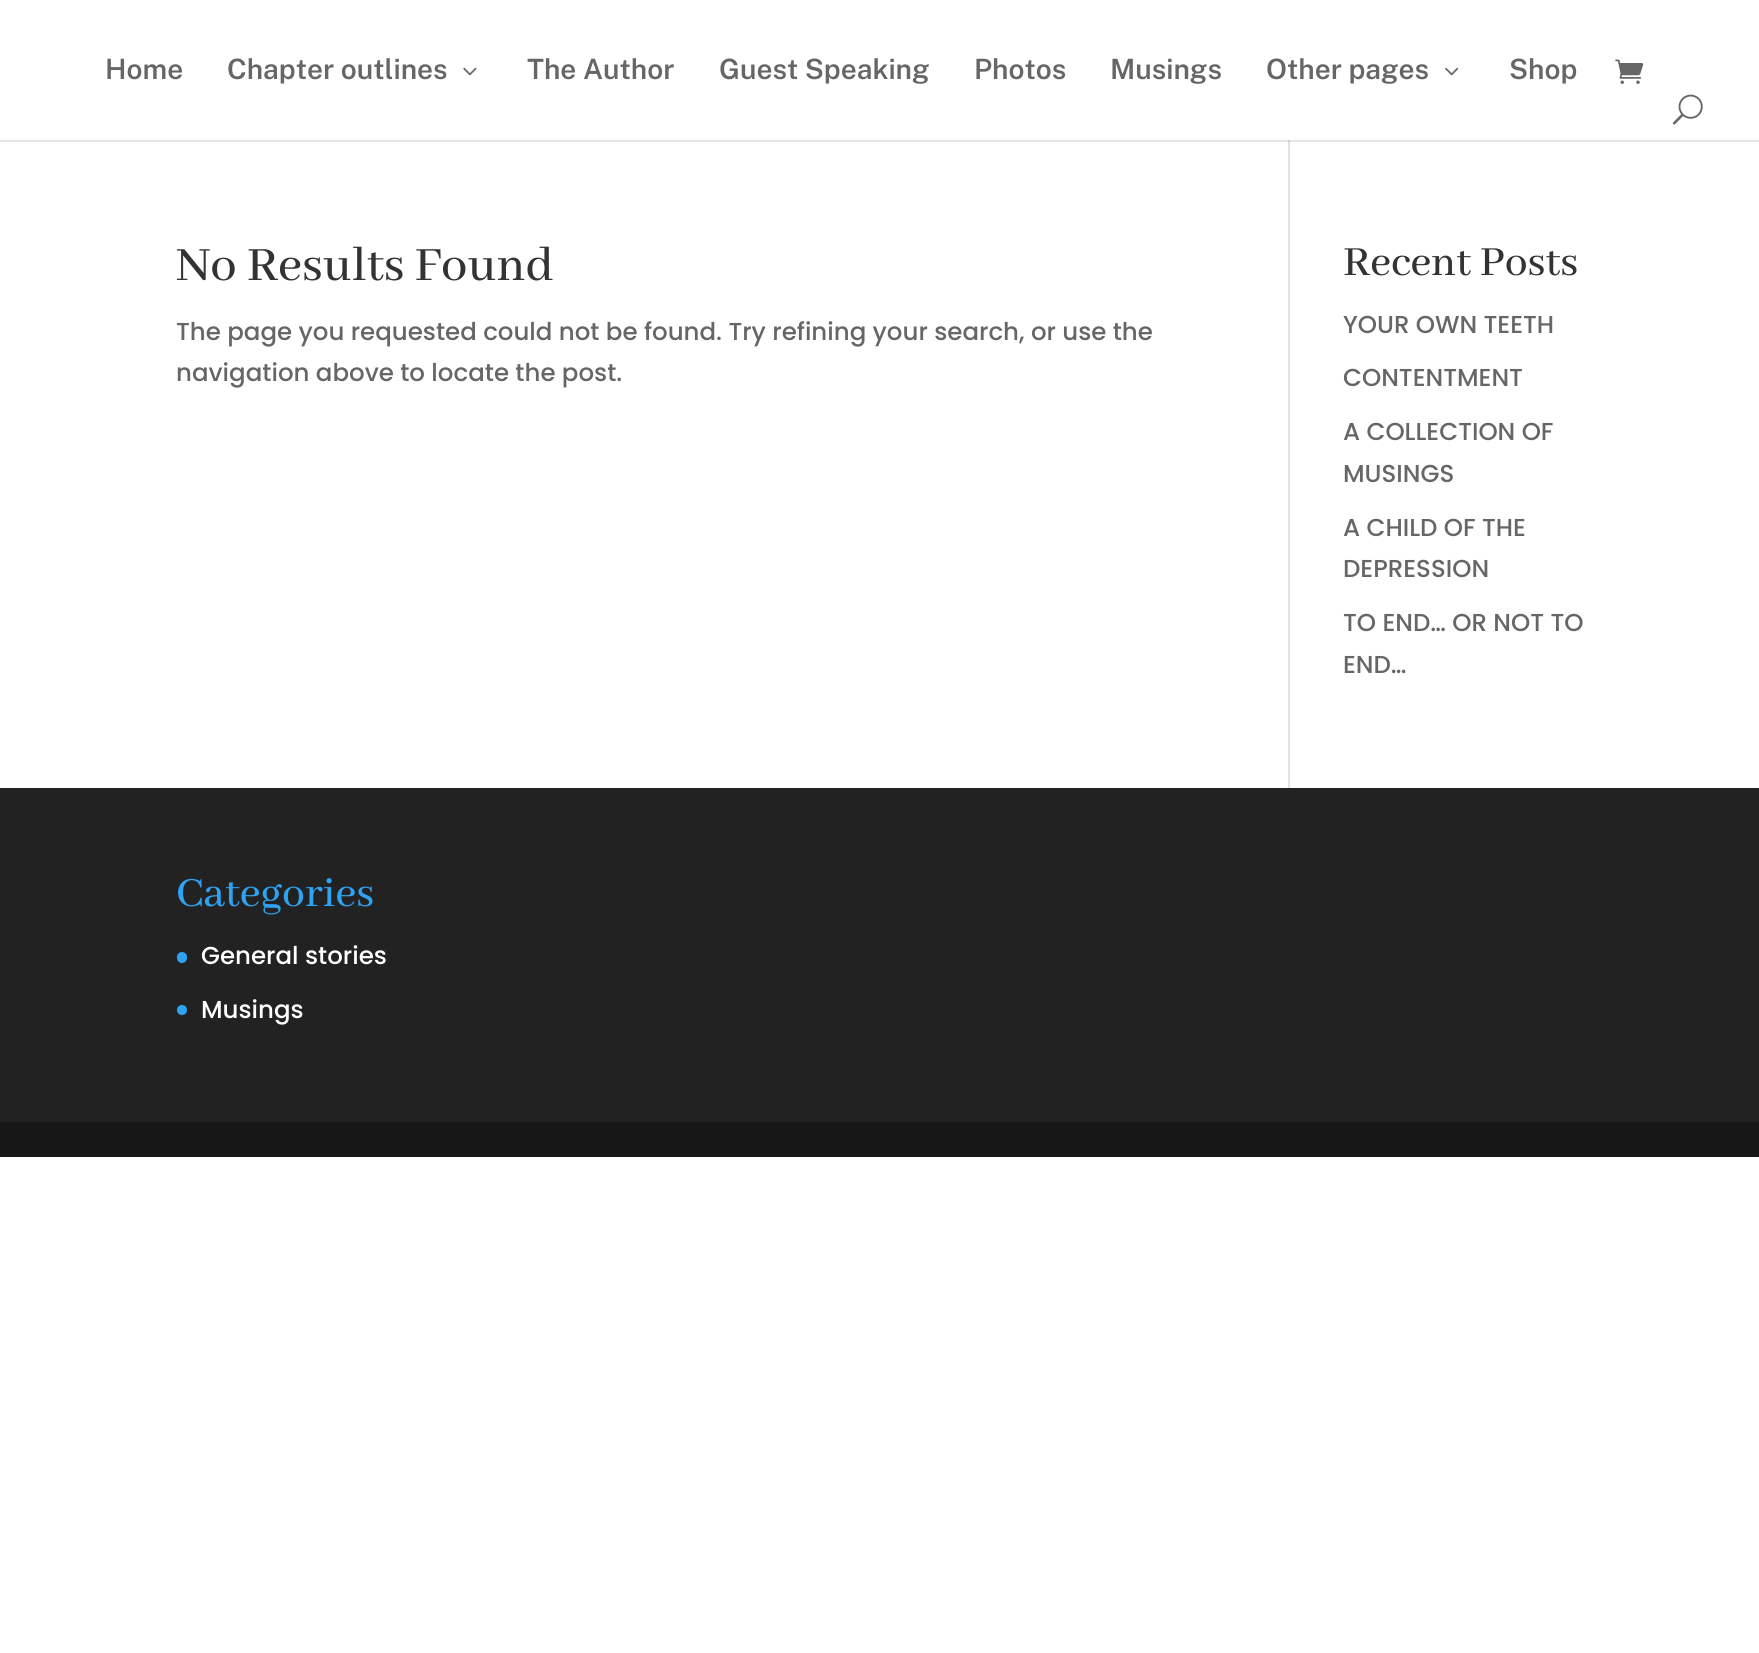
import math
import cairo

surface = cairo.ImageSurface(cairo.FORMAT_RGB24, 1759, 1653)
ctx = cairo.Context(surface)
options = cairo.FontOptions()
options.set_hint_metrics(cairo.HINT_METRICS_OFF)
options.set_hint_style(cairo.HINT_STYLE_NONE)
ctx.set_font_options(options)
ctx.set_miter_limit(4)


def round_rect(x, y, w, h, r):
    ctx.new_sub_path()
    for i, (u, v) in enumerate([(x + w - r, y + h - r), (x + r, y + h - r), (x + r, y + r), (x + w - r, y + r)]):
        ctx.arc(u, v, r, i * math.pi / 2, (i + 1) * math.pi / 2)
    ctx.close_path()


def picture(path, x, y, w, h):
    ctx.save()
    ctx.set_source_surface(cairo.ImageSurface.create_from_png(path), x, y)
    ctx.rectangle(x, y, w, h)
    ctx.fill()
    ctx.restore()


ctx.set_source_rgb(1, 1, 1)
ctx.paint()
ctx.set_source_rgb(0.886, 0.886, 0.886)
ctx.rectangle(1288, 140, 2, 648)
ctx.fill()
ctx.set_source_rgba(0, 0, 0, 0.1)
ctx.new_path()
ctx.move_to(0, 140)
ctx.line_to(0, 142)
ctx.line_to(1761, 142)
ctx.line_to(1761, 2)
ctx.line_to(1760, 2)
ctx.line_to(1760, 140)
ctx.close_path()
ctx.fill()
ctx.select_font_face("Public Sans SemiBold")
ctx.set_font_size(28)
ctx.set_source_rgb(0.4, 0.4, 0.4)
ctx.move_to(105, 79)
ctx.show_text("Home")
ctx.move_to(227, 79)
ctx.show_text("Chapter outlines")
picture("img1.png", 463, 67, 14, 9)
ctx.move_to(527, 79)
ctx.show_text("The Author")
ctx.move_to(719, 79)
ctx.show_text("Guest Speaking")
ctx.move_to(974, 79)
ctx.show_text("Photos")
ctx.move_to(1110, 79)
ctx.show_text("Musings")
ctx.move_to(1266, 79)
ctx.show_text("Other pages")
picture("img2.png", 1445, 67, 14, 9)
ctx.move_to(1509, 79)
ctx.show_text("Shop")
picture("img3.png", 1615, 59, 29, 25)
picture("img4.png", 1672, 94, 31, 31)
ctx.select_font_face("Abhaya Libre Medium Medium")
ctx.set_font_size(52.5)
ctx.set_source_rgb(0.2, 0.2, 0.2)
ctx.move_to(176, 280)
ctx.show_text("No Results Found")
ctx.select_font_face("Poppins Medium")
ctx.set_font_size(24.5)
ctx.set_source_rgb(0.4, 0.4, 0.4)
ctx.move_to(176, 340)
ctx.show_text("The page you requested could not be found. Try refining your search, or use the")
ctx.move_to(176, 381)
ctx.show_text("navigation above to locate the post.")
ctx.select_font_face("Abhaya Libre Medium Medium")
ctx.set_font_size(45.5)
ctx.set_source_rgb(0.2, 0.2, 0.2)
ctx.move_to(1343, 275)
ctx.show_text("Recent Posts")
ctx.select_font_face("Poppins Medium")
ctx.set_font_size(24.5)
ctx.set_source_rgb(0.4, 0.4, 0.4)
ctx.move_to(1343, 333)
ctx.show_text("YOUR OWN TEETH")
ctx.move_to(1343, 386)
ctx.show_text("CONTENTMENT")
ctx.move_to(1343, 440)
ctx.show_text("A COLLECTION OF")
ctx.move_to(1343, 482)
ctx.show_text("MUSINGS")
ctx.move_to(1343, 536)
ctx.show_text("A CHILD OF THE")
ctx.move_to(1343, 577)
ctx.show_text("DEPRESSION")
ctx.move_to(1343, 631)
ctx.show_text("TO END… OR NOT TO")
ctx.move_to(1343, 673)
ctx.show_text("END…")
ctx.set_source_rgb(0.133, 0.133, 0.133)
ctx.rectangle(0, 788, 1759, 334)
ctx.fill()
ctx.select_font_face("Abhaya Libre Medium Medium")
ctx.set_font_size(45.5)
ctx.set_source_rgb(0.18, 0.639, 0.949)
ctx.move_to(176, 906)
ctx.show_text("Categories")
round_rect(177, 952, 10, 11, 5)
ctx.fill()
ctx.select_font_face("Poppins Medium")
ctx.set_font_size(24.5)
ctx.set_source_rgb(1, 1, 1)
ctx.move_to(201, 964)
ctx.show_text("General stories")
ctx.set_source_rgb(0.18, 0.639, 0.949)
ctx.new_path()
ctx.arc(182, 1010, 5, 0, 2 * math.pi)
ctx.fill()
ctx.set_source_rgb(1, 1, 1)
ctx.move_to(201, 1018)
ctx.show_text("Musings")
ctx.set_source_rgb(0.09, 0.09, 0.09)
ctx.rectangle(0, 1122, 1759, 35)
ctx.fill()
surface.write_to_png("page.png")
